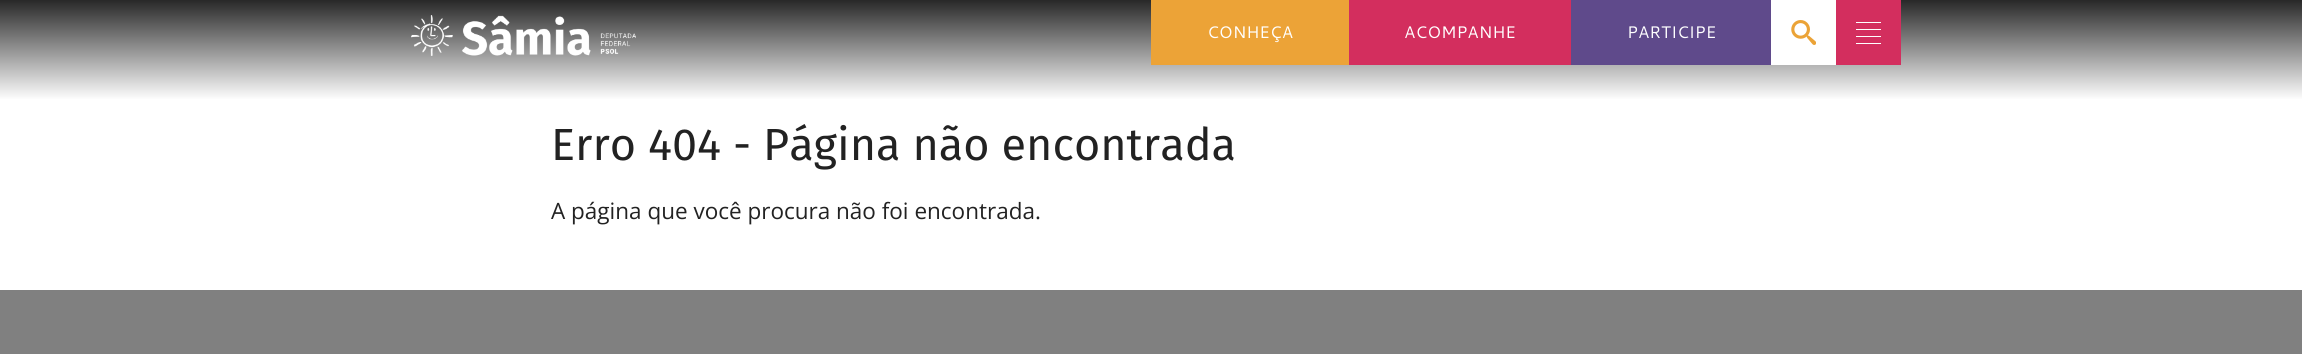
import math
import cairo

surface = cairo.ImageSurface(cairo.FORMAT_RGB24, 2302, 354)
ctx = cairo.Context(surface)
options = cairo.FontOptions()
options.set_hint_metrics(cairo.HINT_METRICS_OFF)
options.set_hint_style(cairo.HINT_STYLE_NONE)
ctx.set_font_options(options)
ctx.set_miter_limit(4)


def picture(path, x, y, w, h):
    ctx.save()
    ctx.set_source_surface(cairo.ImageSurface.create_from_png(path), x, y)
    ctx.rectangle(x, y, w, h)
    ctx.fill()
    ctx.restore()


ctx.set_source_rgb(1, 1, 1)
ctx.paint()
gradient = cairo.LinearGradient(1151, 0, 1151, 100)
gradient.add_color_stop_rgba(0, 0.157, 0.157, 0.157, 1)
gradient.add_color_stop_rgba(1, 1, 1, 1, 1)
ctx.set_source(gradient)
ctx.rectangle(0, 0, 2302, 99)
ctx.fill()
picture("img1.png", 411, 15, 225, 41)
ctx.set_source_rgb(0.922, 0.639, 0.216)
ctx.rectangle(1151, 0, 198, 65)
ctx.fill()
ctx.select_font_face("Cantarell")
ctx.set_font_size(16.75)
ctx.set_source_rgb(1, 1, 1)
ctx.move_to(1207, 38)
ctx.show_text("CONHEÇA")
ctx.set_source_rgb(0.827, 0.18, 0.369)
ctx.rectangle(1349, 0, 222, 65)
ctx.fill()
ctx.set_source_rgb(1, 1, 1)
ctx.move_to(1404, 38)
ctx.show_text("ACOMPANHE")
ctx.set_source_rgb(0.373, 0.29, 0.545)
ctx.rectangle(1571, 0, 200, 65)
ctx.fill()
ctx.set_source_rgb(1, 1, 1)
ctx.move_to(1627, 38)
ctx.show_text("PARTICIPE")
ctx.rectangle(1771, 0, 65, 65)
ctx.fill()
picture("img2.png", 1791, 20, 25, 25)
ctx.set_source_rgb(0.827, 0.18, 0.369)
ctx.rectangle(1836, 0, 65, 65)
ctx.fill()
ctx.set_source_rgb(1, 1, 1)
ctx.rectangle(1856, 22, 25, 1)
ctx.fill()
ctx.rectangle(1856, 29, 25, 1)
ctx.fill()
ctx.rectangle(1856, 36, 25, 1)
ctx.fill()
ctx.rectangle(1856, 43, 25, 1)
ctx.fill()
ctx.select_font_face("Fira Sans")
ctx.set_font_size(45)
ctx.set_source_rgb(0.133, 0.133, 0.133)
ctx.move_to(551, 160)
ctx.show_text("Erro 404 - Página não encontrada")
ctx.select_font_face("Open Sans")
ctx.set_font_size(22.5)
ctx.move_to(551, 219)
ctx.show_text("A página que você procura não foi encontrada.")
ctx.set_source_rgb(0.502, 0.502, 0.502)
ctx.rectangle(0, 290, 2302, 64)
ctx.fill()
surface.write_to_png("page.png")
